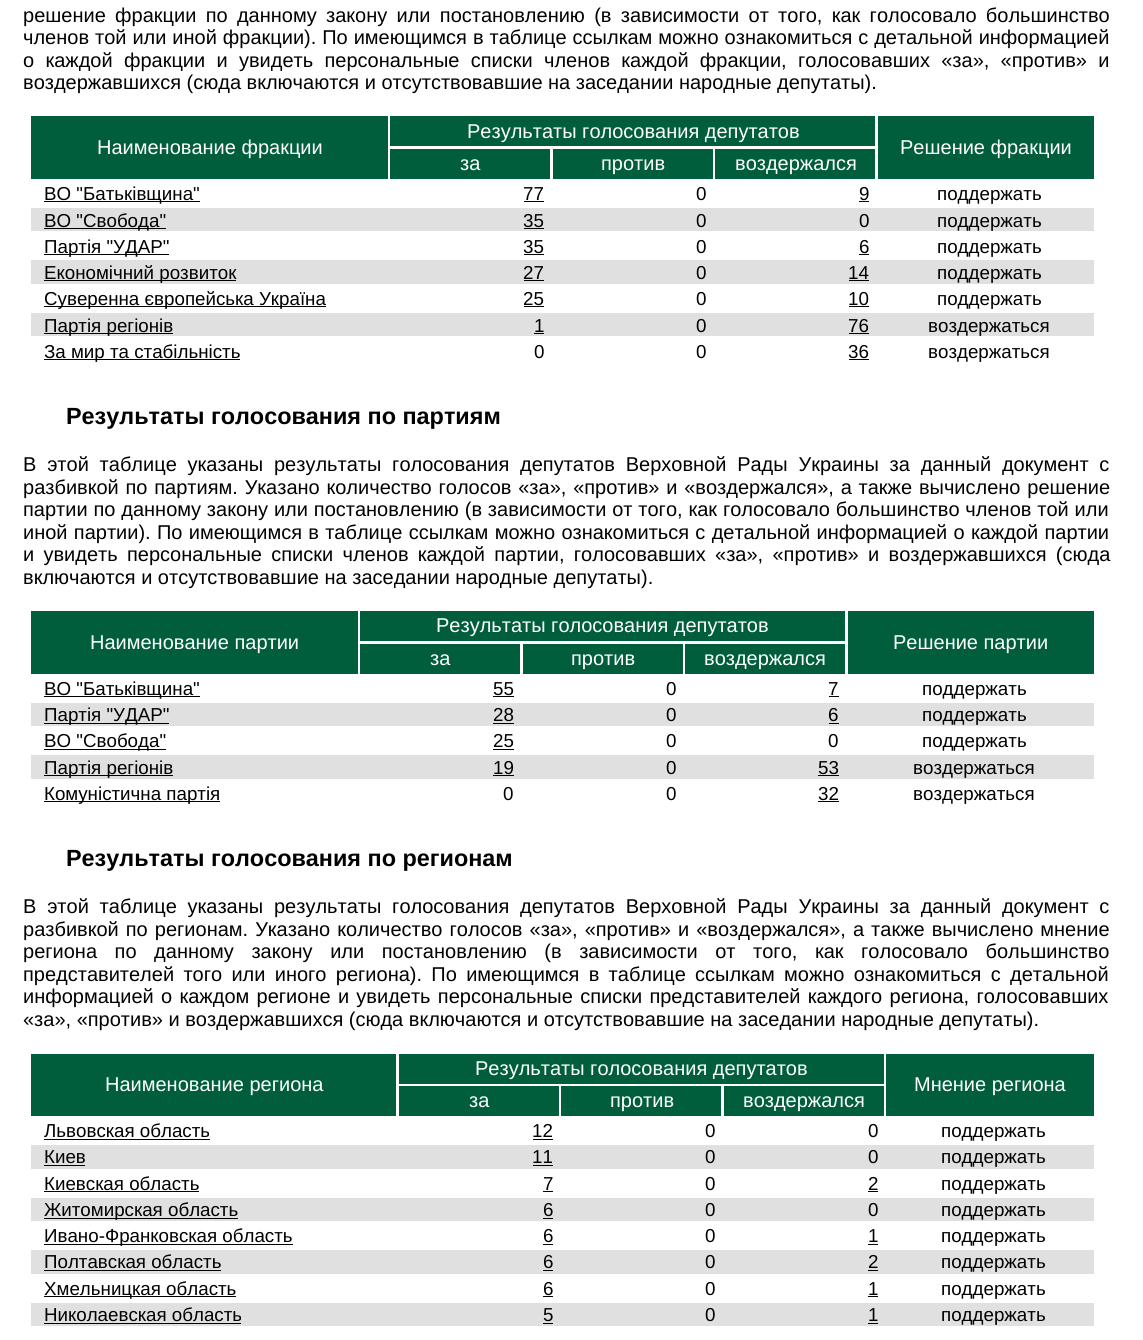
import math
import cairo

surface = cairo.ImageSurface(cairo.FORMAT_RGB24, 1143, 1340)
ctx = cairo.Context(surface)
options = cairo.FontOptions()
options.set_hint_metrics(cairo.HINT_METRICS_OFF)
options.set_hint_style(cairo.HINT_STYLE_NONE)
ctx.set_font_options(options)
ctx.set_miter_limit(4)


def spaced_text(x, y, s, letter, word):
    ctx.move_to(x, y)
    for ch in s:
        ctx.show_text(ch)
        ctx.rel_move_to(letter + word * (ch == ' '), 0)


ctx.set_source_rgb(1, 1, 1)
ctx.paint()
ctx.select_font_face("Liberation Sans")
ctx.set_font_size(20)
ctx.set_source_rgb(0, 0, 0)
spaced_text(23, 22, "решение фракции по данному закону или постановлению (в зависимости от того, как голосовало большинство", 0, 3.75)
spaced_text(23, 44, "членов той или иной фракции). По имеющимся в таблице ссылкам можно ознакомиться с детальной информацией", 0, 0.4)
spaced_text(23, 67, "о каждой фракции и увидеть персональные списки членов каждой фракции, голосовавших «за», «против» и", 0, 5.75)
ctx.move_to(23, 89)
ctx.show_text("воздержавшихся (сюда включаются и отсутствовавшие на заседании народные депутаты).")
ctx.set_source_rgb(0, 0.369, 0.239)
ctx.rectangle(390, 116, 485, 30)
ctx.fill()
ctx.set_source_rgb(1, 1, 1)
ctx.move_to(467, 138)
ctx.show_text("Результаты голосования депутатов")
ctx.set_source_rgb(0, 0.369, 0.239)
ctx.rectangle(31, 116, 357, 63)
ctx.fill()
ctx.set_source_rgb(1, 1, 1)
ctx.move_to(97, 154)
ctx.show_text("Наименование фракции")
ctx.set_source_rgb(0, 0.369, 0.239)
ctx.rectangle(878, 116, 216, 63)
ctx.fill()
ctx.set_source_rgb(1, 1, 1)
ctx.move_to(900, 154)
ctx.show_text("Решение фракции")
ctx.set_source_rgb(0, 0.369, 0.239)
ctx.rectangle(390, 149, 160, 30)
ctx.fill()
ctx.set_source_rgb(1, 1, 1)
ctx.move_to(460, 170)
ctx.show_text("за")
ctx.set_source_rgb(0, 0.369, 0.239)
ctx.rectangle(553, 149, 160, 30)
ctx.fill()
ctx.set_source_rgb(1, 1, 1)
ctx.move_to(601, 170)
ctx.show_text("против")
ctx.set_source_rgb(0, 0.369, 0.239)
ctx.rectangle(715, 149, 160, 30)
ctx.fill()
ctx.set_source_rgb(1, 1, 1)
ctx.move_to(735, 170)
ctx.show_text("воздержался")
ctx.set_source_rgb(0, 0, 0)
ctx.rectangle(44, 201, 156, 1)
ctx.fill()
ctx.set_font_size(18.75)
ctx.move_to(44, 200)
ctx.show_text("ВО \"Батьківщина\"")
ctx.move_to(523, 200)
ctx.show_text("77")
ctx.rectangle(524, 201, 20, 1)
ctx.fill()
ctx.move_to(696, 200)
ctx.show_text("0")
ctx.move_to(859, 200)
ctx.show_text("9")
ctx.rectangle(859, 201, 10, 1)
ctx.fill()
ctx.move_to(937, 200)
ctx.show_text("поддержать")
ctx.set_source_rgb(0.878, 0.878, 0.878)
ctx.rectangle(31, 208, 1063, 23)
ctx.fill()
ctx.set_source_rgb(0, 0, 0)
ctx.rectangle(44, 228, 122, 1)
ctx.fill()
ctx.move_to(44, 227)
ctx.show_text("ВО \"Свобода\"")
ctx.move_to(523, 227)
ctx.show_text("35")
ctx.rectangle(524, 228, 20, 1)
ctx.fill()
ctx.move_to(696, 227)
ctx.show_text("0")
ctx.move_to(859, 227)
ctx.show_text("0")
ctx.move_to(937, 227)
ctx.show_text("поддержать")
ctx.rectangle(44, 254, 125, 1)
ctx.fill()
ctx.move_to(44, 253)
ctx.show_text("Партія \"УДАР\"")
ctx.move_to(523, 253)
ctx.show_text("35")
ctx.rectangle(524, 254, 20, 1)
ctx.fill()
ctx.move_to(696, 253)
ctx.show_text("0")
ctx.move_to(859, 253)
ctx.show_text("6")
ctx.rectangle(859, 254, 10, 1)
ctx.fill()
ctx.move_to(937, 253)
ctx.show_text("поддержать")
ctx.set_source_rgb(0.878, 0.878, 0.878)
ctx.rectangle(31, 260, 1063, 24)
ctx.fill()
ctx.set_source_rgb(0, 0, 0)
ctx.rectangle(44, 280, 192, 1)
ctx.fill()
ctx.move_to(44, 279)
ctx.show_text("Економічний розвиток")
ctx.move_to(523, 279)
ctx.show_text("27")
ctx.rectangle(524, 280, 20, 1)
ctx.fill()
ctx.move_to(696, 279)
ctx.show_text("0")
ctx.move_to(848, 279)
ctx.show_text("14")
ctx.rectangle(849, 280, 20, 1)
ctx.fill()
ctx.move_to(937, 279)
ctx.show_text("поддержать")
ctx.rectangle(44, 306, 282, 1)
ctx.fill()
ctx.move_to(44, 305)
ctx.show_text("Суверенна європейська Україна")
ctx.move_to(523, 305)
ctx.show_text("25")
ctx.rectangle(524, 306, 20, 1)
ctx.fill()
ctx.move_to(696, 305)
ctx.show_text("0")
ctx.move_to(848, 305)
ctx.show_text("10")
ctx.rectangle(849, 306, 20, 1)
ctx.fill()
ctx.move_to(937, 305)
ctx.show_text("поддержать")
ctx.set_source_rgb(0.878, 0.878, 0.878)
ctx.rectangle(31, 313, 1063, 23)
ctx.fill()
ctx.set_source_rgb(0, 0, 0)
ctx.rectangle(44, 333, 129, 1)
ctx.fill()
ctx.move_to(44, 332)
ctx.show_text("Партія регіонів")
ctx.move_to(534, 332)
ctx.show_text("1")
ctx.rectangle(534, 333, 10, 1)
ctx.fill()
ctx.move_to(696, 332)
ctx.show_text("0")
ctx.move_to(848, 332)
ctx.show_text("76")
ctx.rectangle(849, 333, 20, 1)
ctx.fill()
ctx.move_to(928, 332)
ctx.show_text("воздержаться")
ctx.rectangle(44, 359, 196, 1)
ctx.fill()
ctx.move_to(44, 358)
ctx.show_text("За мир та стабільність")
ctx.move_to(534, 358)
ctx.show_text("0")
ctx.move_to(696, 358)
ctx.show_text("0")
ctx.move_to(848, 358)
ctx.show_text("36")
ctx.rectangle(849, 359, 20, 1)
ctx.fill()
ctx.move_to(928, 358)
ctx.show_text("воздержаться")
ctx.select_font_face("Liberation Sans", cairo.FONT_SLANT_NORMAL, cairo.FONT_WEIGHT_BOLD)
ctx.set_font_size(23.4)
ctx.move_to(66, 424)
ctx.show_text("Результаты голосования по партиям")
ctx.select_font_face("Liberation Sans")
ctx.set_font_size(20)
spaced_text(23, 471, "В этой таблице указаны результаты голосования депутатов Верховной Рады Украины за данный документ с", 0, 5.25)
spaced_text(23, 494, "разбивкой по партиям. Указано количество голосов «за», «против» и «воздержался», а также вычислено решение", 0, 1.25)
spaced_text(23, 516, "партии по данному закону или постановлению (в зависимости от того, как голосовало большинство членов той или", 0, 0.3)
spaced_text(23, 539, "иной партии). По имеющимся в таблице ссылкам можно ознакомиться с детальной информацией о каждой партии", 0, 0.75)
spaced_text(23, 561, "и увидеть персональные списки членов каждой партии, голосовавших «за», «против» и воздержавшихся (сюда", 0, 3.75)
ctx.move_to(23, 584)
ctx.show_text("включаются и отсутствовавшие на заседании народные депутаты).")
ctx.set_source_rgb(0, 0.369, 0.239)
ctx.rectangle(360, 611, 485, 30)
ctx.fill()
ctx.set_source_rgb(1, 1, 1)
ctx.move_to(436, 632)
ctx.show_text("Результаты голосования депутатов")
ctx.set_source_rgb(0, 0.369, 0.239)
ctx.rectangle(31, 611, 327, 63)
ctx.fill()
ctx.set_source_rgb(1, 1, 1)
ctx.move_to(90, 649)
ctx.show_text("Наименование партии")
ctx.set_source_rgb(0, 0.369, 0.239)
ctx.rectangle(848, 611, 246, 63)
ctx.fill()
ctx.set_source_rgb(1, 1, 1)
ctx.move_to(893, 649)
ctx.show_text("Решение партии")
ctx.set_source_rgb(0, 0.369, 0.239)
ctx.rectangle(360, 644, 160, 30)
ctx.fill()
ctx.set_source_rgb(1, 1, 1)
ctx.move_to(430, 665)
ctx.show_text("за")
ctx.set_source_rgb(0, 0.369, 0.239)
ctx.rectangle(523, 644, 160, 30)
ctx.fill()
ctx.set_source_rgb(1, 1, 1)
ctx.move_to(571, 665)
ctx.show_text("против")
ctx.set_source_rgb(0, 0.369, 0.239)
ctx.rectangle(685, 644, 160, 30)
ctx.fill()
ctx.set_source_rgb(1, 1, 1)
ctx.move_to(704, 665)
ctx.show_text("воздержался")
ctx.set_source_rgb(0, 0, 0)
ctx.rectangle(44, 696, 156, 1)
ctx.fill()
ctx.set_font_size(18.75)
ctx.move_to(44, 695)
ctx.show_text("ВО \"Батьківщина\"")
ctx.move_to(493, 695)
ctx.show_text("55")
ctx.rectangle(493, 696, 21, 1)
ctx.fill()
ctx.move_to(666, 695)
ctx.show_text("0")
ctx.move_to(828, 695)
ctx.show_text("7")
ctx.rectangle(829, 696, 10, 1)
ctx.fill()
ctx.move_to(922, 695)
ctx.show_text("поддержать")
ctx.set_source_rgb(0.878, 0.878, 0.878)
ctx.rectangle(31, 703, 1063, 23)
ctx.fill()
ctx.set_source_rgb(0, 0, 0)
ctx.rectangle(44, 723, 125, 1)
ctx.fill()
ctx.move_to(44, 721)
ctx.show_text("Партія \"УДАР\"")
ctx.move_to(493, 721)
ctx.show_text("28")
ctx.rectangle(493, 723, 21, 1)
ctx.fill()
ctx.move_to(666, 721)
ctx.show_text("0")
ctx.move_to(828, 721)
ctx.show_text("6")
ctx.rectangle(829, 723, 10, 1)
ctx.fill()
ctx.move_to(922, 721)
ctx.show_text("поддержать")
ctx.rectangle(44, 749, 122, 1)
ctx.fill()
ctx.move_to(44, 747)
ctx.show_text("ВО \"Свобода\"")
ctx.move_to(493, 747)
ctx.show_text("25")
ctx.rectangle(493, 749, 21, 1)
ctx.fill()
ctx.move_to(666, 747)
ctx.show_text("0")
ctx.move_to(828, 747)
ctx.show_text("0")
ctx.move_to(922, 747)
ctx.show_text("поддержать")
ctx.set_source_rgb(0.878, 0.878, 0.878)
ctx.rectangle(31, 755, 1063, 24)
ctx.fill()
ctx.set_source_rgb(0, 0, 0)
ctx.rectangle(44, 775, 129, 1)
ctx.fill()
ctx.move_to(44, 774)
ctx.show_text("Партія регіонів")
ctx.move_to(493, 774)
ctx.show_text("19")
ctx.rectangle(493, 775, 21, 1)
ctx.fill()
ctx.move_to(666, 774)
ctx.show_text("0")
ctx.move_to(818, 774)
ctx.show_text("53")
ctx.rectangle(818, 775, 21, 1)
ctx.fill()
ctx.move_to(913, 774)
ctx.show_text("воздержаться")
ctx.rectangle(44, 801, 176, 1)
ctx.fill()
ctx.move_to(44, 800)
ctx.show_text("Комуністична партія")
ctx.move_to(503, 800)
ctx.show_text("0")
ctx.move_to(666, 800)
ctx.show_text("0")
ctx.move_to(818, 800)
ctx.show_text("32")
ctx.rectangle(818, 801, 21, 1)
ctx.fill()
ctx.move_to(913, 800)
ctx.show_text("воздержаться")
ctx.select_font_face("Liberation Sans", cairo.FONT_SLANT_NORMAL, cairo.FONT_WEIGHT_BOLD)
ctx.set_font_size(23.4)
ctx.move_to(66, 866)
ctx.show_text("Результаты голосования по регионам")
ctx.select_font_face("Liberation Sans")
ctx.set_font_size(20)
spaced_text(23, 913, "В этой таблице указаны результаты голосования депутатов Верховной Рады Украины за данный документ с", 0, 5.25)
spaced_text(23, 936, "разбивкой по регионам. Указано количество голосов «за», «против» и «воздержался», а также вычислено мнение", 0, 1.5)
spaced_text(23, 958, "региона по данному закону или постановлению (в зависимости от того, как голосовало большинство", 0, 12)
spaced_text(23, 981, "представителей того или иного региона). По имеющимся в таблице ссылкам можно ознакомиться с детальной", 0, 3.75)
spaced_text(23, 1003, "информацией о каждом регионе и увидеть персональные списки представителей каждого региона, голосовавших", 0, 1.75)
ctx.move_to(23, 1026)
ctx.show_text("«за», «против» и воздержавшихся (сюда включаются и отсутствовавшие на заседании народные депутаты).")
ctx.set_source_rgb(0, 0.369, 0.239)
ctx.rectangle(399, 1054, 485, 30)
ctx.fill()
ctx.set_source_rgb(1, 1, 1)
ctx.move_to(475, 1075)
ctx.show_text("Результаты голосования депутатов")
ctx.set_source_rgb(0, 0.369, 0.239)
ctx.rectangle(31, 1054, 365, 62)
ctx.fill()
ctx.set_source_rgb(1, 1, 1)
ctx.move_to(105, 1091)
ctx.show_text("Наименование региона")
ctx.set_source_rgb(0, 0.369, 0.239)
ctx.rectangle(886, 1054, 208, 62)
ctx.fill()
ctx.set_source_rgb(1, 1, 1)
ctx.move_to(914, 1091)
ctx.show_text("Мнение региона")
ctx.set_source_rgb(0, 0.369, 0.239)
ctx.rectangle(399, 1086, 160, 30)
ctx.fill()
ctx.set_source_rgb(1, 1, 1)
ctx.move_to(469, 1107)
ctx.show_text("за")
ctx.set_source_rgb(0, 0.369, 0.239)
ctx.rectangle(561, 1086, 160, 30)
ctx.fill()
ctx.set_source_rgb(1, 1, 1)
ctx.move_to(610, 1107)
ctx.show_text("против")
ctx.set_source_rgb(0, 0.369, 0.239)
ctx.rectangle(724, 1086, 160, 30)
ctx.fill()
ctx.set_source_rgb(1, 1, 1)
ctx.move_to(743, 1107)
ctx.show_text("воздержался")
ctx.set_font_size(18.75)
ctx.set_source_rgb(0, 0, 0)
ctx.move_to(44, 1137)
ctx.show_text("Львовская область")
ctx.rectangle(44, 1139, 166, 1)
ctx.fill()
ctx.move_to(532, 1137)
ctx.show_text("12")
ctx.rectangle(533, 1139, 20, 1)
ctx.fill()
ctx.move_to(705, 1137)
ctx.show_text("0")
ctx.move_to(868, 1137)
ctx.show_text("0")
ctx.move_to(941, 1137)
ctx.show_text("поддержать")
ctx.set_source_rgb(0.878, 0.878, 0.878)
ctx.rectangle(31, 1145, 1063, 24)
ctx.fill()
ctx.set_source_rgb(0, 0, 0)
ctx.move_to(44, 1163)
ctx.show_text("Киев")
ctx.rectangle(44, 1165, 41, 1)
ctx.fill()
ctx.move_to(532, 1163)
ctx.show_text("11")
ctx.rectangle(533, 1165, 20, 1)
ctx.fill()
ctx.move_to(705, 1163)
ctx.show_text("0")
ctx.move_to(868, 1163)
ctx.show_text("0")
ctx.move_to(941, 1163)
ctx.show_text("поддержать")
ctx.move_to(44, 1190)
ctx.show_text("Киевская область")
ctx.rectangle(44, 1191, 155, 1)
ctx.fill()
ctx.move_to(543, 1190)
ctx.show_text("7")
ctx.rectangle(543, 1191, 10, 1)
ctx.fill()
ctx.move_to(705, 1190)
ctx.show_text("0")
ctx.move_to(868, 1190)
ctx.show_text("2")
ctx.rectangle(868, 1191, 10, 1)
ctx.fill()
ctx.move_to(941, 1190)
ctx.show_text("поддержать")
ctx.set_source_rgb(0.878, 0.878, 0.878)
ctx.rectangle(31, 1198, 1063, 23)
ctx.fill()
ctx.set_source_rgb(0, 0, 0)
ctx.rectangle(44, 1218, 194, 1)
ctx.fill()
ctx.move_to(44, 1216)
ctx.show_text("Житомирская область")
ctx.move_to(543, 1216)
ctx.show_text("6")
ctx.rectangle(543, 1218, 10, 1)
ctx.fill()
ctx.move_to(705, 1216)
ctx.show_text("0")
ctx.move_to(868, 1216)
ctx.show_text("0")
ctx.move_to(941, 1216)
ctx.show_text("поддержать")
ctx.rectangle(44, 1244, 249, 1)
ctx.fill()
ctx.move_to(44, 1242)
ctx.show_text("Ивано-Франковская область")
ctx.move_to(543, 1242)
ctx.show_text("6")
ctx.rectangle(543, 1244, 10, 1)
ctx.fill()
ctx.move_to(705, 1242)
ctx.show_text("0")
ctx.move_to(868, 1242)
ctx.show_text("1")
ctx.rectangle(868, 1244, 10, 1)
ctx.fill()
ctx.move_to(941, 1242)
ctx.show_text("поддержать")
ctx.set_source_rgb(0.878, 0.878, 0.878)
ctx.rectangle(31, 1250, 1063, 24)
ctx.fill()
ctx.set_source_rgb(0, 0, 0)
ctx.move_to(44, 1268)
ctx.show_text("Полтавская область")
ctx.rectangle(44, 1270, 177, 1)
ctx.fill()
ctx.move_to(543, 1268)
ctx.show_text("6")
ctx.rectangle(543, 1270, 10, 1)
ctx.fill()
ctx.move_to(705, 1268)
ctx.show_text("0")
ctx.move_to(868, 1268)
ctx.show_text("2")
ctx.rectangle(868, 1270, 10, 1)
ctx.fill()
ctx.move_to(941, 1268)
ctx.show_text("поддержать")
ctx.rectangle(44, 1296, 192, 1)
ctx.fill()
ctx.move_to(44, 1295)
ctx.show_text("Хмельницкая область")
ctx.move_to(543, 1295)
ctx.show_text("6")
ctx.rectangle(543, 1296, 10, 1)
ctx.fill()
ctx.move_to(705, 1295)
ctx.show_text("0")
ctx.move_to(868, 1295)
ctx.show_text("1")
ctx.rectangle(868, 1296, 10, 1)
ctx.fill()
ctx.move_to(941, 1295)
ctx.show_text("поддержать")
ctx.set_source_rgb(0.878, 0.878, 0.878)
ctx.rectangle(31, 1303, 1063, 23)
ctx.fill()
ctx.set_source_rgb(0, 0, 0)
ctx.move_to(44, 1321)
ctx.show_text("Николаевская область")
ctx.rectangle(44, 1323, 197, 1)
ctx.fill()
ctx.move_to(543, 1321)
ctx.show_text("5")
ctx.rectangle(543, 1323, 10, 1)
ctx.fill()
ctx.move_to(705, 1321)
ctx.show_text("0")
ctx.move_to(868, 1321)
ctx.show_text("1")
ctx.rectangle(868, 1323, 10, 1)
ctx.fill()
ctx.move_to(941, 1321)
ctx.show_text("поддержать")
surface.write_to_png("page.png")
